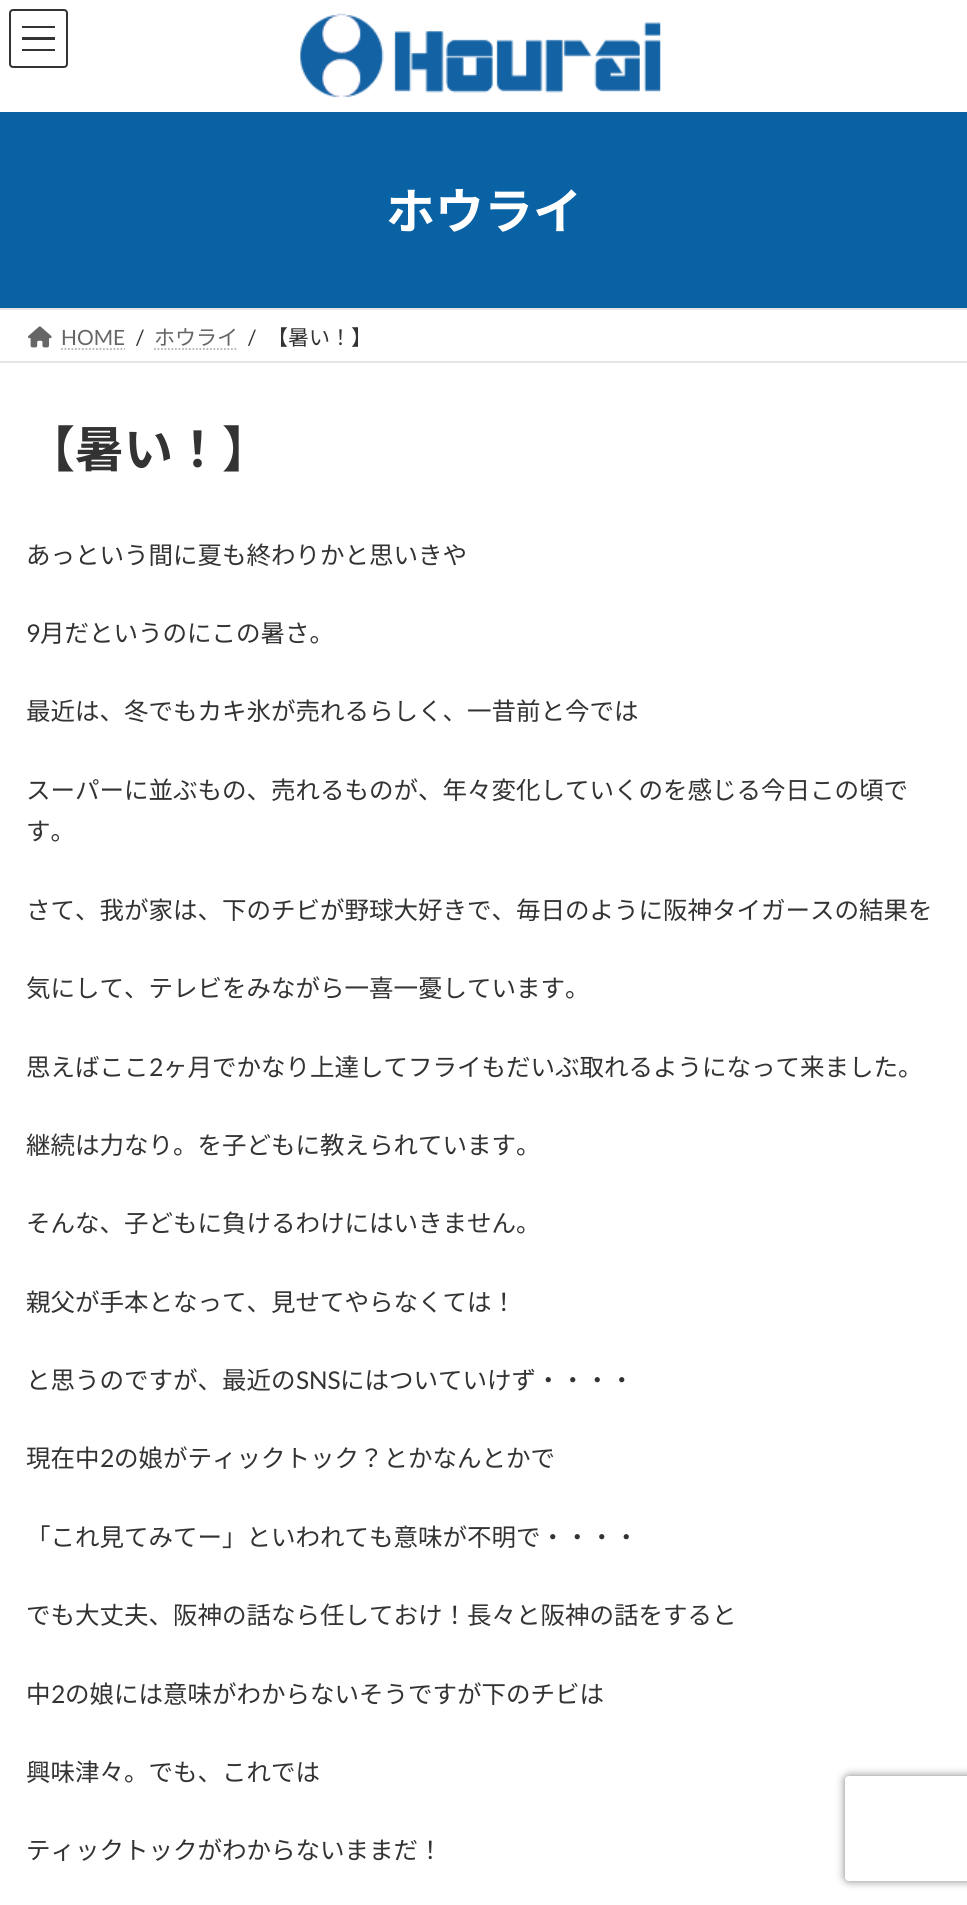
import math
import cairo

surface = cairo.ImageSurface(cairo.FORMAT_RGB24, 967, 1905)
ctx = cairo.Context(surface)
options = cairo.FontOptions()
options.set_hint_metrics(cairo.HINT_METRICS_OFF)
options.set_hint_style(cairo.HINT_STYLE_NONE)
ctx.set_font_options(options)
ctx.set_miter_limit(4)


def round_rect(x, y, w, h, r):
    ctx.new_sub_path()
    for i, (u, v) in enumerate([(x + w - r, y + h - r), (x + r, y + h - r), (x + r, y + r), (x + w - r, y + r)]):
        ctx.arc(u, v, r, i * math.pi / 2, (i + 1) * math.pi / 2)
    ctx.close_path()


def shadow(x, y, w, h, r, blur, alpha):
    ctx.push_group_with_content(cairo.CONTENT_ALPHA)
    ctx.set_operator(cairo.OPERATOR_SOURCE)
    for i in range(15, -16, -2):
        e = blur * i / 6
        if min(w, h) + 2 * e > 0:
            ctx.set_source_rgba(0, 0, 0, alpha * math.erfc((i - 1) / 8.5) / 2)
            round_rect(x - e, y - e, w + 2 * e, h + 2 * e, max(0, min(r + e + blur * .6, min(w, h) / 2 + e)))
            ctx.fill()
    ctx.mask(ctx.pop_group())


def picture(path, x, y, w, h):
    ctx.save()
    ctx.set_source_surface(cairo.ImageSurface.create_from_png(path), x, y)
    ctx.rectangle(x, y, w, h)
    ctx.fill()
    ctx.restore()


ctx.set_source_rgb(1, 1, 1)
ctx.paint()
ctx.set_source_rgb(0.2, 0.2, 0.2)
ctx.rectangle(22, 26, 33, 2)
ctx.fill()
ctx.rectangle(22, 37, 33, 3)
ctx.fill()
ctx.rectangle(22, 49, 33, 2)
ctx.fill()
round_rect(10, 10, 57, 57, 3)
ctx.stroke()
picture("img1.png", 300, 13, 361, 85)
ctx.set_source_rgb(0.035, 0.384, 0.643)
ctx.rectangle(0, 112, 967, 196)
ctx.fill()
ctx.select_font_face("Noto Sans JP", cairo.FONT_SLANT_NORMAL, cairo.FONT_WEIGHT_BOLD)
ctx.set_font_size(49)
ctx.set_source_rgb(1, 1, 1)
ctx.move_to(386, 229)
ctx.show_text("ホウライ")
ctx.set_source_rgb(0.898, 0.898, 0.898)
ctx.rectangle(0, 308, 967, 2)
ctx.fill()
ctx.rectangle(0, 361, 967, 2)
ctx.fill()
picture("img2.png", 28, 326, 24, 22)
ctx.select_font_face("Lato")
ctx.set_font_size(21)
ctx.set_source_rgb(0.4, 0.4, 0.4)
ctx.move_to(61, 345)
ctx.show_text("HOME")
ctx.new_path()
ctx.move_to(61, 349)
ctx.line_to(125, 349)
ctx.set_source_rgb(0.702, 0.702, 0.702)
ctx.set_line_width(1.8)
ctx.set_dash([1.75, 1.75])
ctx.stroke()
ctx.set_source_rgb(0.2, 0.2, 0.2)
ctx.move_to(136, 345)
ctx.show_text("/")
ctx.select_font_face("Noto Sans JP")
ctx.set_source_rgb(0.4, 0.4, 0.4)
ctx.move_to(154, 345)
ctx.show_text("ホウライ")
ctx.new_path()
ctx.move_to(154, 349)
ctx.line_to(238, 349)
ctx.set_source_rgb(0.702, 0.702, 0.702)
ctx.stroke()
ctx.select_font_face("Lato")
ctx.set_source_rgb(0.2, 0.2, 0.2)
ctx.move_to(248, 345)
ctx.show_text("/")
ctx.select_font_face("Noto Sans JP")
ctx.move_to(267, 345)
ctx.show_text("【暑い！】")
ctx.select_font_face("Noto Sans JP", cairo.FONT_SLANT_NORMAL, cairo.FONT_WEIGHT_BOLD)
ctx.set_font_size(49)
ctx.move_to(26, 467)
ctx.show_text("【暑い！】")
ctx.select_font_face("Noto Sans JP")
ctx.set_font_size(24.5)
ctx.move_to(26, 564)
ctx.show_text("あっという間に夏も終わりかと思いきや")
ctx.select_font_face("Lato")
ctx.move_to(26, 642)
ctx.show_text("9")
ctx.select_font_face("Noto Sans JP")
ctx.move_to(40, 642)
ctx.show_text("月だというのにこの暑さ。")
ctx.move_to(26, 720)
ctx.show_text("最近は、冬でもカキ氷が売れるらしく、一昔前と今では")
ctx.move_to(26, 799)
ctx.show_text("スーパーに並ぶもの、売れるものが、年々変化していくのを感じる今日この頃で")
ctx.move_to(26, 840)
ctx.show_text("す。")
ctx.move_to(26, 919)
ctx.show_text("さて、我が家は、下のチビが野球大好きで、毎日のように阪神タイガースの結果を")
ctx.move_to(26, 997)
ctx.show_text("気にして、テレビをみながら一喜一憂しています。")
ctx.move_to(26, 1076)
ctx.show_text("思えばここ")
ctx.select_font_face("Lato")
ctx.move_to(149, 1076)
ctx.show_text("2")
ctx.select_font_face("Noto Sans JP")
ctx.move_to(163, 1076)
ctx.show_text("ヶ月でかなり上達してフライもだいぶ取れるようになって来ました。")
ctx.move_to(26, 1154)
ctx.show_text("継続は力なり。を子どもに教えられています。")
ctx.move_to(26, 1232)
ctx.show_text("そんな、子どもに負けるわけにはいきません。")
ctx.move_to(26, 1311)
ctx.show_text("親父が手本となって、見せてやらなくては！")
ctx.move_to(26, 1389)
ctx.show_text("と思うのですが、最近の")
ctx.select_font_face("Lato")
ctx.move_to(296, 1389)
ctx.show_text("SNS")
ctx.select_font_face("Noto Sans JP")
ctx.move_to(340, 1389)
ctx.show_text("にはついていけず・・・・")
ctx.move_to(26, 1467)
ctx.show_text("現在中")
ctx.select_font_face("Lato")
ctx.move_to(100, 1467)
ctx.show_text("2")
ctx.select_font_face("Noto Sans JP")
ctx.move_to(114, 1467)
ctx.show_text("の娘がティックトック？とかなんとかで")
ctx.move_to(26, 1546)
ctx.show_text("「これ見てみてー」といわれても意味が不明で・・・・")
ctx.move_to(26, 1624)
ctx.show_text("でも大丈夫、阪神の話なら任しておけ！長々と阪神の話をすると")
ctx.move_to(26, 1703)
ctx.show_text("中")
ctx.select_font_face("Lato")
ctx.move_to(51, 1703)
ctx.show_text("2")
ctx.select_font_face("Noto Sans JP")
ctx.move_to(65, 1703)
ctx.show_text("の娘には意味がわからないそうですが下のチビは")
ctx.move_to(26, 1781)
ctx.show_text("興味津々。でも、これでは")
ctx.move_to(26, 1859)
ctx.show_text("ティックトックがわからないままだ！")
ctx.save()
ctx.set_fill_rule(cairo.FILL_RULE_EVEN_ODD)
ctx.new_path()
ctx.move_to(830, 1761)
ctx.line_to(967, 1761)
ctx.line_to(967, 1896)
ctx.line_to(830, 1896)
ctx.close_path()
ctx.move_to(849, 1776)
ctx.line_to(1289, 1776)
ctx.curve_to(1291, 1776, 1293, 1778, 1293, 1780)
ctx.line_to(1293, 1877)
ctx.curve_to(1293, 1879, 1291, 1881, 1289, 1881)
ctx.line_to(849, 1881)
ctx.curve_to(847, 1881, 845, 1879, 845, 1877)
ctx.line_to(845, 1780)
ctx.curve_to(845, 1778, 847, 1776, 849, 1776)
ctx.close_path()
ctx.clip()
ctx.set_source_rgb(0.502, 0.502, 0.502)
shadow(845, 1776, 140, 105, 4, 4.5, 1)
ctx.restore()
surface.write_to_png("page.png")
